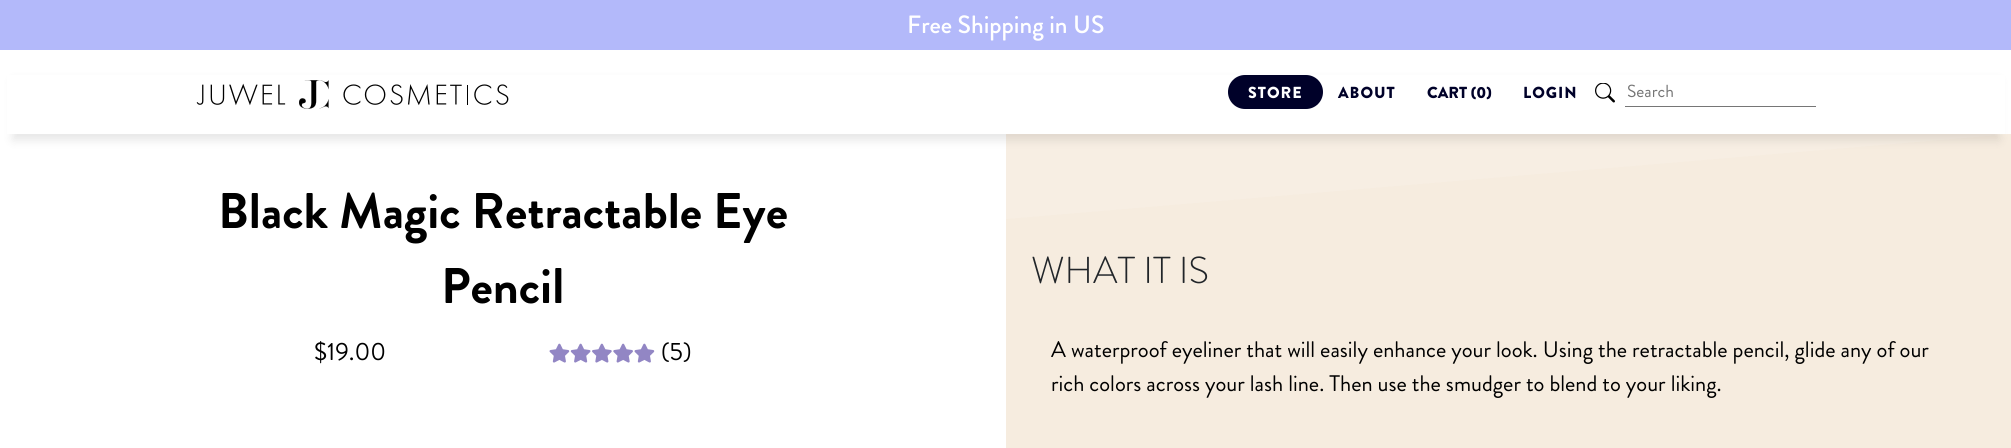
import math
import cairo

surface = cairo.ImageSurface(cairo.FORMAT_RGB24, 2011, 448)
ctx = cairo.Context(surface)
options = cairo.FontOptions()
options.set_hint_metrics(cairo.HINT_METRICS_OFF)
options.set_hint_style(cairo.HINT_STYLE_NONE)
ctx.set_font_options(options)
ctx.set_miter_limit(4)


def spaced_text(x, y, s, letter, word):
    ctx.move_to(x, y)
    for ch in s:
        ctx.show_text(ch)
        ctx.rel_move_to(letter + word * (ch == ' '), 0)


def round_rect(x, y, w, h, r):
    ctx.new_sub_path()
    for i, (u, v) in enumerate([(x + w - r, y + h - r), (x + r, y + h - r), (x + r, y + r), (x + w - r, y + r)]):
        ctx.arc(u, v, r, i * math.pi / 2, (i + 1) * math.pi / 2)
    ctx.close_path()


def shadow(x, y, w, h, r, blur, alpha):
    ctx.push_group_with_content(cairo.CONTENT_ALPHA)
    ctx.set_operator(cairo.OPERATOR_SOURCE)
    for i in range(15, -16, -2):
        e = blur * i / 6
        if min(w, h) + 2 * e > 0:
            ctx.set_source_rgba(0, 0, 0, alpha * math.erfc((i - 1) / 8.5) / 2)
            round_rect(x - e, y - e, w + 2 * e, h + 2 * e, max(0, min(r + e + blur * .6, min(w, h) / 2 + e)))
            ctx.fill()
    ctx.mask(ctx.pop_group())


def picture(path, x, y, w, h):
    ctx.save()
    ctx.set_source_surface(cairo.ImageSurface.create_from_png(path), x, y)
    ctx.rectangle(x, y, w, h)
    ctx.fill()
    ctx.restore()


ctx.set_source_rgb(1, 1, 1)
ctx.paint()
ctx.set_source_rgb(0.702, 0.725, 0.98)
ctx.rectangle(0, 0, 2011, 50)
ctx.fill()
ctx.select_font_face("Brandon Grotesque Medium")
ctx.set_font_size(25)
ctx.set_source_rgb(1, 1, 1)
ctx.move_to(907, 33)
ctx.show_text("Free Shipping in US")
ctx.set_source_rgb(0.965, 0.933, 0.89)
ctx.rectangle(1006, 134, 1005, 85)
ctx.fill()
ctx.set_source_rgb(0.961, 0.922, 0.875)
ctx.new_path()
ctx.move_to(2011, 134)
ctx.line_to(2011, 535)
ctx.line_to(1006, 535)
ctx.line_to(1006, 219)
ctx.close_path()
ctx.fill()
ctx.set_source_rgb(0, 0, 0)
shadow(13, 81, 1986, 59, 0, 5, 0.1)
ctx.set_source_rgb(1, 1, 1)
ctx.rectangle(7, 75, 1998, 59)
ctx.fill()
picture("img1.png", 196, 80, 313, 29)
ctx.set_source_rgb(0, 0.004, 0.161)
round_rect(1228, 75, 95, 34, 17)
ctx.fill()
ctx.select_font_face("Brandon Grotesque Black")
ctx.set_font_size(16)
ctx.set_source_rgb(1, 1, 1)
spaced_text(1248, 98, "STORE", 1, 0)
ctx.set_source_rgb(0, 0.004, 0.161)
spaced_text(1338, 98, "ABOUT", 1, 0)
ctx.move_to(1427, 98)
ctx.show_text("CART (0)")
spaced_text(1523, 98, "LOGIN", 1, 0)
picture("img2.png", 1595, 83, 20, 20)
ctx.select_font_face("Brandon Grotesque")
ctx.set_font_size(17.5)
ctx.set_source_rgb(0.459, 0.459, 0.459)
ctx.move_to(1627, 97)
ctx.show_text("Search")
ctx.set_source_rgb(0.463, 0.463, 0.463)
ctx.rectangle(1625, 106, 191, 1)
ctx.fill()
ctx.select_font_face("Brandon Grotesque", cairo.FONT_SLANT_NORMAL, cairo.FONT_WEIGHT_BOLD)
ctx.set_font_size(50)
ctx.set_source_rgb(0, 0, 0)
ctx.move_to(218, 228)
ctx.show_text("Black Magic Retractable Eye")
ctx.move_to(441, 303)
ctx.show_text("Pencil")
ctx.select_font_face("Brandon Grotesque")
ctx.set_font_size(25)
ctx.move_to(314, 360)
ctx.show_text("$19.00")
picture("img3.png", 549, 343, 21, 20)
picture("img4.png", 570, 343, 21, 20)
picture("img5.png", 592, 343, 20, 20)
picture("img6.png", 613, 343, 20, 20)
picture("img3.png", 634, 343, 21, 20)
ctx.move_to(661, 360)
ctx.show_text("(5)")
ctx.select_font_face("Brandon Grotesque Light")
ctx.set_font_size(37.5)
ctx.set_source_rgb(0.129, 0.145, 0.161)
ctx.move_to(1031, 283)
ctx.show_text("WHAT IT IS")
ctx.select_font_face("Brandon Grotesque")
ctx.set_font_size(22.5)
ctx.set_source_rgb(0, 0, 0)
ctx.move_to(1051, 357)
ctx.show_text("A waterproof eyeliner that will easily enhance your look. Using the retractable pencil, glide any of our")
ctx.move_to(1051, 391)
ctx.show_text("rich colors across your lash line. Then use the smudger to blend to your liking.")
surface.write_to_png("page.png")
